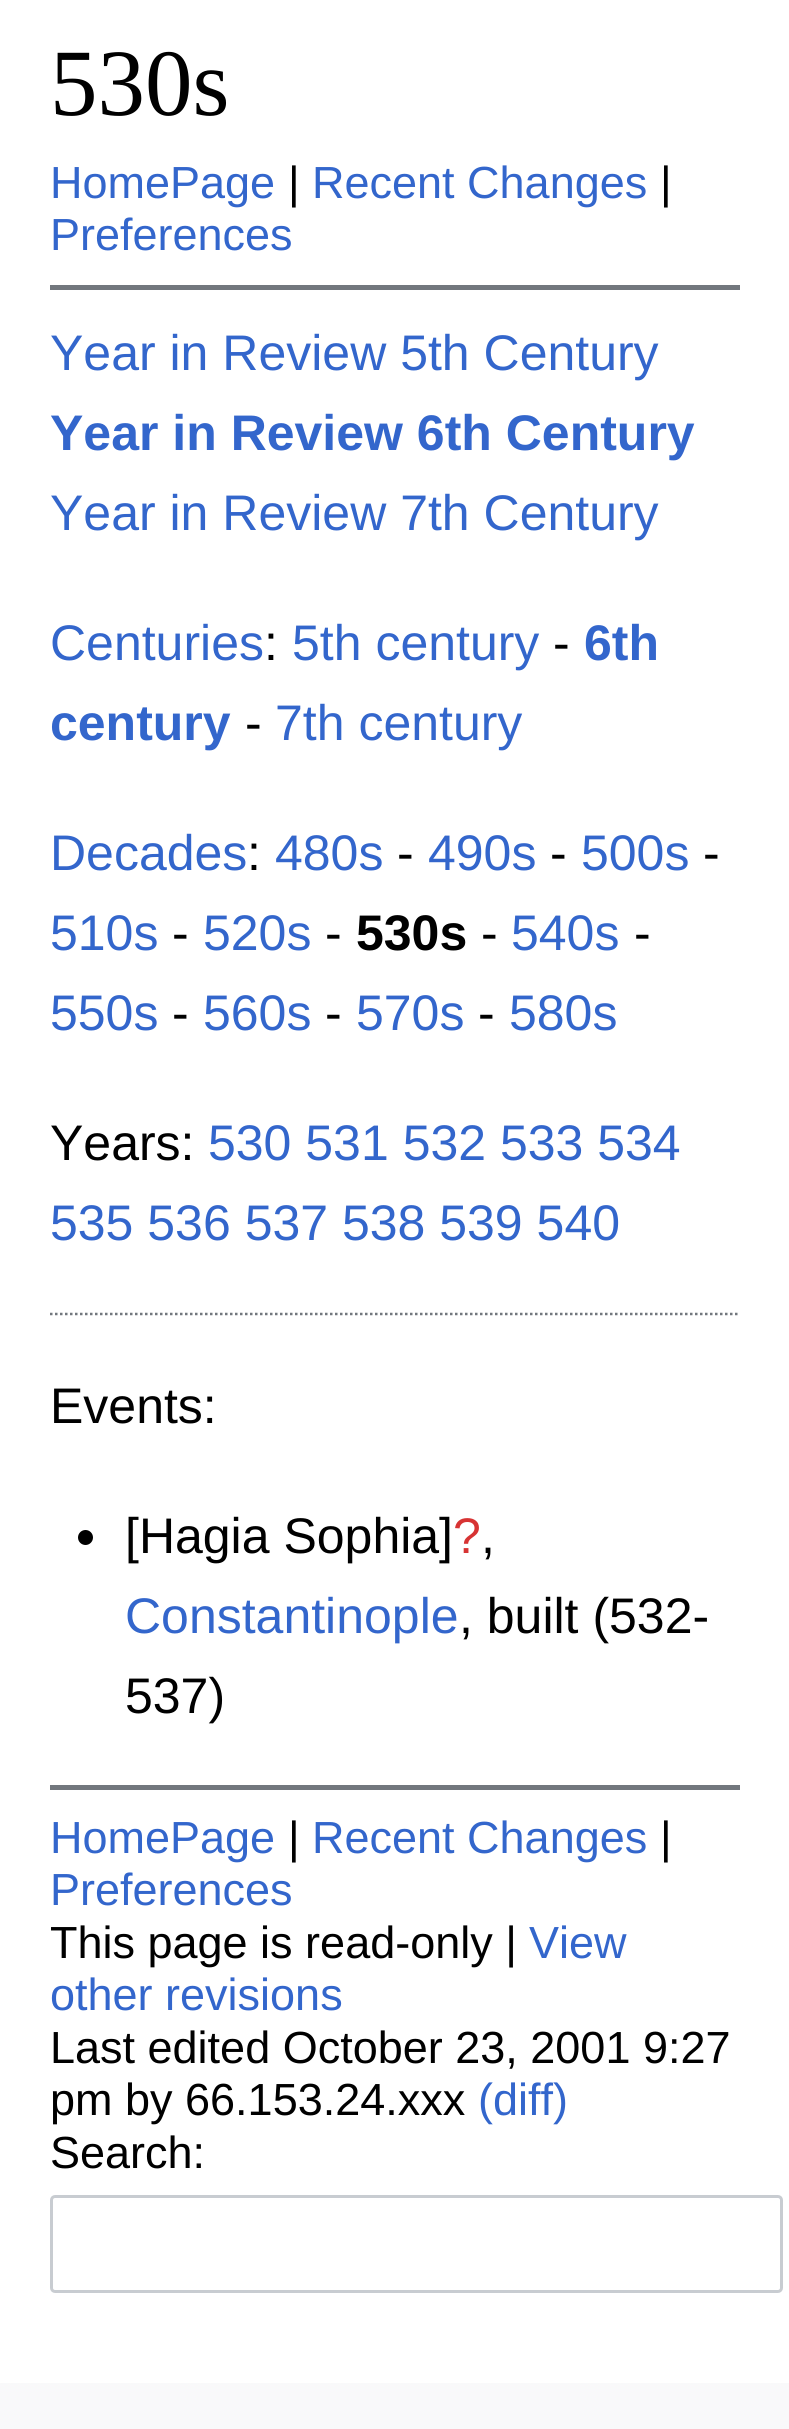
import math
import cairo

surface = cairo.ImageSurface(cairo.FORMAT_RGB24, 789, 2429)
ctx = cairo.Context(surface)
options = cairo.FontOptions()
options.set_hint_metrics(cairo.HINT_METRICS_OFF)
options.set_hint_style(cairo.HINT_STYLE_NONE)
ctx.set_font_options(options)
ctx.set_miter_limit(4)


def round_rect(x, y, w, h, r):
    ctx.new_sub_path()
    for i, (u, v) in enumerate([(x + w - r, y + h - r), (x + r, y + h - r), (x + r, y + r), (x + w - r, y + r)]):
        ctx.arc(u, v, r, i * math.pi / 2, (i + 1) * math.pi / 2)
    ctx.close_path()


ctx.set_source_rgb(0.973, 0.976, 0.98)
ctx.paint()
ctx.set_source_rgb(1, 1, 1)
ctx.rectangle(0, 0, 789, 2383)
ctx.fill()
ctx.select_font_face("Liberation Serif")
ctx.set_font_size(95)
ctx.set_source_rgb(0, 0, 0)
ctx.move_to(50, 115)
ctx.show_text("530s")
ctx.select_font_face("Liberation Sans")
ctx.set_font_size(45)
ctx.set_source_rgb(0.2, 0.4, 0.8)
ctx.move_to(50, 198)
ctx.show_text("HomePage")
ctx.set_source_rgb(0, 0, 0)
ctx.move_to(288, 198)
ctx.show_text("|")
ctx.set_source_rgb(0.2, 0.4, 0.8)
ctx.move_to(312, 198)
ctx.show_text("Recent Changes")
ctx.set_source_rgb(0, 0, 0)
ctx.move_to(660, 198)
ctx.show_text("|")
ctx.set_source_rgb(0.2, 0.4, 0.8)
ctx.move_to(50, 250)
ctx.show_text("Preferences")
ctx.set_source_rgb(0.447, 0.467, 0.49)
ctx.rectangle(50, 285, 690, 5)
ctx.fill()
ctx.set_font_size(50)
ctx.set_source_rgb(0.2, 0.4, 0.8)
ctx.move_to(50, 370)
ctx.show_text("Year in Review 5th Century")
ctx.select_font_face("Liberation Sans", cairo.FONT_SLANT_NORMAL, cairo.FONT_WEIGHT_BOLD)
ctx.move_to(50, 450)
ctx.show_text("Year in Review 6th Century")
ctx.select_font_face("Liberation Sans")
ctx.move_to(50, 530)
ctx.show_text("Year in Review 7th Century")
ctx.move_to(50, 660)
ctx.show_text("Centuries")
ctx.set_source_rgb(0, 0, 0)
ctx.move_to(264, 660)
ctx.show_text(":")
ctx.set_source_rgb(0.2, 0.4, 0.8)
ctx.move_to(292, 660)
ctx.show_text("5th century")
ctx.set_source_rgb(0, 0, 0)
ctx.move_to(553, 660)
ctx.show_text("-")
ctx.select_font_face("Liberation Sans", cairo.FONT_SLANT_NORMAL, cairo.FONT_WEIGHT_BOLD)
ctx.set_source_rgb(0.2, 0.4, 0.8)
ctx.move_to(584, 660)
ctx.show_text("6th")
ctx.move_to(50, 740)
ctx.show_text("century")
ctx.select_font_face("Liberation Sans")
ctx.set_source_rgb(0, 0, 0)
ctx.move_to(245, 740)
ctx.show_text("-")
ctx.set_source_rgb(0.2, 0.4, 0.8)
ctx.move_to(275, 740)
ctx.show_text("7th century")
ctx.move_to(50, 870)
ctx.show_text("Decades")
ctx.set_source_rgb(0, 0, 0)
ctx.move_to(247, 870)
ctx.show_text(":")
ctx.set_source_rgb(0.2, 0.4, 0.8)
ctx.move_to(275, 870)
ctx.show_text("480s")
ctx.set_source_rgb(0, 0, 0)
ctx.move_to(397, 870)
ctx.show_text("-")
ctx.set_source_rgb(0.2, 0.4, 0.8)
ctx.move_to(428, 870)
ctx.show_text("490s")
ctx.set_source_rgb(0, 0, 0)
ctx.move_to(550, 870)
ctx.show_text("-")
ctx.set_source_rgb(0.2, 0.4, 0.8)
ctx.move_to(581, 870)
ctx.show_text("500s")
ctx.set_source_rgb(0, 0, 0)
ctx.move_to(703, 870)
ctx.show_text("-")
ctx.set_source_rgb(0.2, 0.4, 0.8)
ctx.move_to(50, 950)
ctx.show_text("510s")
ctx.set_source_rgb(0, 0, 0)
ctx.move_to(172, 950)
ctx.show_text("-")
ctx.set_source_rgb(0.2, 0.4, 0.8)
ctx.move_to(203, 950)
ctx.show_text("520s")
ctx.set_source_rgb(0, 0, 0)
ctx.move_to(325, 950)
ctx.show_text("-")
ctx.select_font_face("Liberation Sans", cairo.FONT_SLANT_NORMAL, cairo.FONT_WEIGHT_BOLD)
ctx.move_to(356, 950)
ctx.show_text("530s")
ctx.select_font_face("Liberation Sans")
ctx.move_to(481, 950)
ctx.show_text("-")
ctx.set_source_rgb(0.2, 0.4, 0.8)
ctx.move_to(511, 950)
ctx.show_text("540s")
ctx.set_source_rgb(0, 0, 0)
ctx.move_to(634, 950)
ctx.show_text("-")
ctx.set_source_rgb(0.2, 0.4, 0.8)
ctx.move_to(50, 1030)
ctx.show_text("550s")
ctx.set_source_rgb(0, 0, 0)
ctx.move_to(172, 1030)
ctx.show_text("-")
ctx.set_source_rgb(0.2, 0.4, 0.8)
ctx.move_to(203, 1030)
ctx.show_text("560s")
ctx.set_source_rgb(0, 0, 0)
ctx.move_to(325, 1030)
ctx.show_text("-")
ctx.set_source_rgb(0.2, 0.4, 0.8)
ctx.move_to(356, 1030)
ctx.show_text("570s")
ctx.set_source_rgb(0, 0, 0)
ctx.move_to(478, 1030)
ctx.show_text("-")
ctx.set_source_rgb(0.2, 0.4, 0.8)
ctx.move_to(509, 1030)
ctx.show_text("580s")
ctx.set_source_rgb(0, 0, 0)
ctx.move_to(50, 1160)
ctx.show_text("Years:")
ctx.set_source_rgb(0.2, 0.4, 0.8)
ctx.move_to(208, 1160)
ctx.show_text("530 531 532 533 534")
ctx.move_to(50, 1240)
ctx.show_text("535 536 537 538 539 540")
ctx.new_path()
ctx.move_to(50, 1314)
ctx.line_to(740, 1314)
ctx.set_source_rgb(0.447, 0.467, 0.49)
ctx.set_line_width(2.5)
ctx.set_dash([2.5, 2.5])
ctx.stroke()
ctx.set_source_rgb(0, 0, 0)
ctx.move_to(50, 1423)
ctx.show_text("Events:")
ctx.new_path()
ctx.arc(85.5, 1537.5, 7.5, 0, 2 * math.pi)
ctx.fill()
ctx.move_to(125, 1553)
ctx.show_text("[Hagia Sophia]")
ctx.set_source_rgb(0.843, 0.2, 0.2)
ctx.move_to(453, 1553)
ctx.show_text("?")
ctx.set_source_rgb(0, 0, 0)
ctx.move_to(481, 1553)
ctx.show_text(",")
ctx.set_source_rgb(0.2, 0.4, 0.8)
ctx.move_to(125, 1633)
ctx.show_text("Constantinople")
ctx.set_source_rgb(0, 0, 0)
ctx.move_to(459, 1633)
ctx.show_text(", built (532-")
ctx.move_to(125, 1713)
ctx.show_text("537)")
ctx.set_source_rgb(0.447, 0.467, 0.49)
ctx.rectangle(50, 1785, 690, 5)
ctx.fill()
ctx.set_font_size(45)
ctx.set_source_rgb(0.2, 0.4, 0.8)
ctx.move_to(50, 1853)
ctx.show_text("HomePage")
ctx.set_source_rgb(0, 0, 0)
ctx.move_to(288, 1853)
ctx.show_text("|")
ctx.set_source_rgb(0.2, 0.4, 0.8)
ctx.move_to(312, 1853)
ctx.show_text("Recent Changes")
ctx.set_source_rgb(0, 0, 0)
ctx.move_to(660, 1853)
ctx.show_text("|")
ctx.set_source_rgb(0.2, 0.4, 0.8)
ctx.move_to(50, 1905)
ctx.show_text("Preferences")
ctx.set_source_rgb(0, 0, 0)
ctx.move_to(50, 1958)
ctx.show_text("This page is read-only |")
ctx.set_source_rgb(0.2, 0.4, 0.8)
ctx.move_to(529, 1958)
ctx.show_text("View")
ctx.move_to(50, 2010)
ctx.show_text("other revisions")
ctx.set_source_rgb(0, 0, 0)
ctx.move_to(50, 2063)
ctx.show_text("Last edited October 23, 2001 9:27")
ctx.move_to(50, 2115)
ctx.show_text("pm by 66.153.24.xxx")
ctx.set_source_rgb(0.2, 0.4, 0.8)
ctx.move_to(478, 2115)
ctx.show_text("(diff)")
ctx.set_source_rgb(0, 0, 0)
ctx.move_to(50, 2168)
ctx.show_text("Search:")
round_rect(51.5, 2196.5, 730, 95, 3.5)
ctx.set_source_rgb(0.784, 0.8, 0.82)
ctx.set_line_width(3)
ctx.set_dash([])
ctx.stroke()
surface.write_to_png("page.png")
